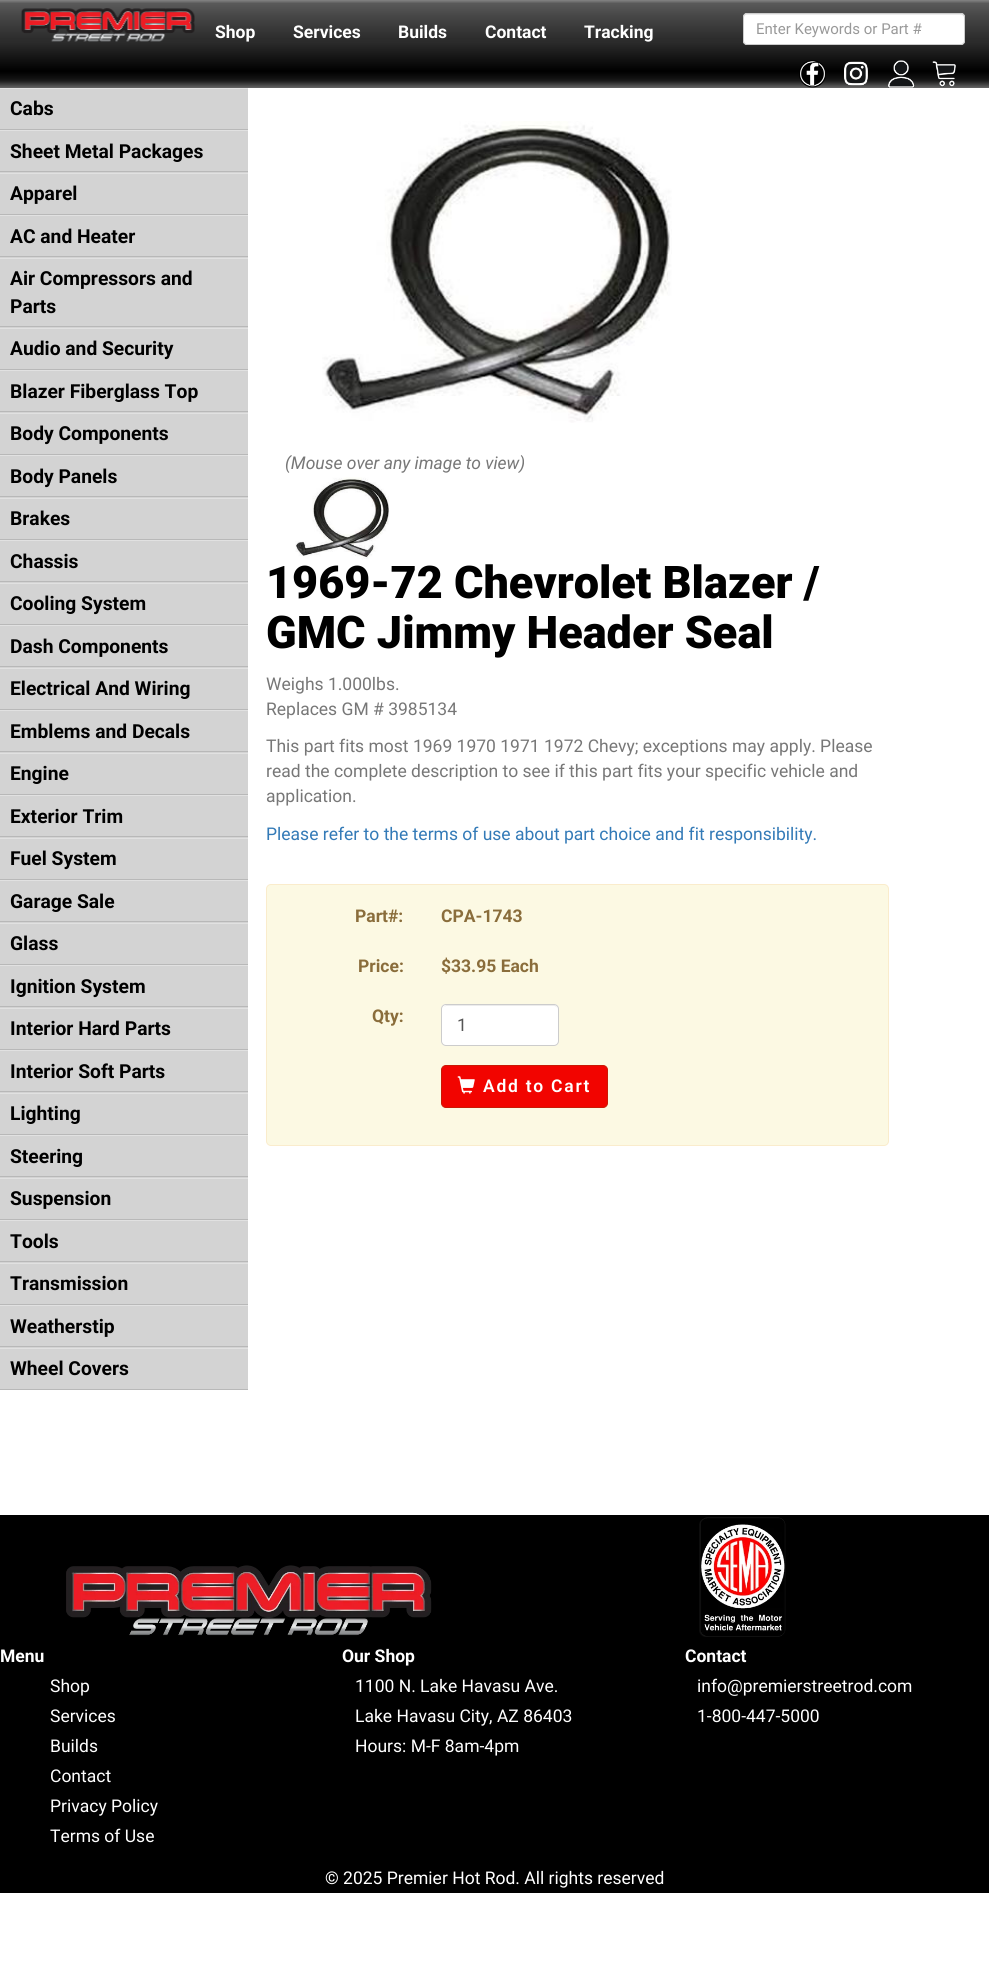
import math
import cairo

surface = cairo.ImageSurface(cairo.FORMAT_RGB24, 989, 1976)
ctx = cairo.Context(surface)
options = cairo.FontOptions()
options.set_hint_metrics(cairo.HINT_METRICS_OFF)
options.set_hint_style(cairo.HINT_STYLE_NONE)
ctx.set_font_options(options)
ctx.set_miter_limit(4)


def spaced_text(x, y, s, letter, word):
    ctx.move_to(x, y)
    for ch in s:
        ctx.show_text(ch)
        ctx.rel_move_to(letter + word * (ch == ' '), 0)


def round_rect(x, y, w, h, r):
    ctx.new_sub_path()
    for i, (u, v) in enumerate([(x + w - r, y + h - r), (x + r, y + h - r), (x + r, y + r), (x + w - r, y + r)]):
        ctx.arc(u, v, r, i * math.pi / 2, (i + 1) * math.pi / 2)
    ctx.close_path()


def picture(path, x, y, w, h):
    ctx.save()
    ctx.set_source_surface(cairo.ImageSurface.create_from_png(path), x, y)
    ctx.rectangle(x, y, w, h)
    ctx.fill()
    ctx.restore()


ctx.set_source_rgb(1, 1, 1)
ctx.paint()
gradient = cairo.LinearGradient(495, 0, 495, 88)
gradient.add_color_stop_rgba(0, 0.518, 0.518, 0.518, 1)
gradient.add_color_stop_rgba(0.04, 0.349, 0.349, 0.349, 1)
gradient.add_color_stop_rgba(0.18, 0.278, 0.278, 0.278, 1)
gradient.add_color_stop_rgba(0.44, 0.173, 0.173, 0.173, 1)
gradient.add_color_stop_rgba(0.48, 0.169, 0.169, 0.169, 1)
gradient.add_color_stop_rgba(0.81, 0, 0, 0, 1)
gradient.add_color_stop_rgba(0.89, 0.067, 0.067, 0.067, 1)
gradient.add_color_stop_rgba(0.92, 0.11, 0.11, 0.11, 1)
gradient.add_color_stop_rgba(1, 0.4, 0.4, 0.4, 1)
gradient.add_color_stop_rgba(1, 0.075, 0.075, 0.075, 1)
ctx.set_source(gradient)
ctx.rectangle(0, 0, 989, 88)
ctx.fill()
picture("img1.png", 21, 8, 174, 34)
ctx.select_font_face("Roboto", cairo.FONT_SLANT_NORMAL, cairo.FONT_WEIGHT_BOLD)
ctx.set_font_size(17.5)
ctx.set_source_rgb(1, 1, 1)
ctx.move_to(215, 38)
ctx.show_text("Shop")
ctx.move_to(293, 38)
ctx.show_text("Services")
ctx.move_to(398, 38)
ctx.show_text("Builds")
ctx.move_to(485, 38)
ctx.show_text("Contact")
ctx.move_to(584, 38)
ctx.show_text("Tracking")
round_rect(743, 13, 222, 32, 4)
ctx.fill()
ctx.set_source_rgb(0.925, 0.925, 0.925)
ctx.new_path()
ctx.move_to(746, 15)
ctx.line_to(961, 15)
ctx.curve_to(963, 15, 964, 16, 964, 18)
ctx.line_to(964, 16)
ctx.curve_to(964, 15, 963, 14, 962, 14)
ctx.line_to(746, 14)
ctx.curve_to(745, 14, 744, 15, 744, 16)
ctx.line_to(744, 18)
ctx.curve_to(744, 16, 745, 15, 746, 15)
ctx.close_path()
ctx.fill()
round_rect(743.5, 13.5, 221, 31, 3.5)
ctx.set_source_rgb(0.8, 0.8, 0.8)
ctx.set_line_width(1)
ctx.stroke()
ctx.select_font_face("Roboto")
ctx.set_font_size(15)
ctx.set_source_rgb(0.6, 0.6, 0.6)
ctx.move_to(756, 34)
ctx.show_text("Enter Keywords or Part #")
picture("img2.png", 799, 60, 27, 28)
picture("img3.png", 844, 61, 24, 25)
picture("img4.png", 888, 60, 27, 28)
picture("img5.png", 932, 61, 24, 26)
ctx.set_source_rgb(0.827, 0.827, 0.827)
ctx.rectangle(0, 89, 248, 40)
ctx.fill()
ctx.set_source_rgb(0.882, 0.882, 0.882)
ctx.rectangle(0, 88, 248, 1)
ctx.fill()
ctx.set_source_rgb(0.722, 0.722, 0.722)
ctx.rectangle(0, 129, 248, 1)
ctx.fill()
ctx.select_font_face("Roboto", cairo.FONT_SLANT_NORMAL, cairo.FONT_WEIGHT_BOLD)
ctx.set_font_size(19.25)
ctx.set_source_rgb(0, 0, 0)
ctx.move_to(10, 115)
ctx.show_text("Cabs")
ctx.set_source_rgb(0.827, 0.827, 0.827)
ctx.rectangle(0, 131, 248, 42)
ctx.fill()
ctx.set_source_rgb(0.882, 0.882, 0.882)
ctx.rectangle(0, 130, 248, 1)
ctx.fill()
ctx.set_source_rgb(0.722, 0.722, 0.722)
ctx.rectangle(0, 171, 248, 1)
ctx.fill()
ctx.set_source_rgb(0, 0, 0)
ctx.move_to(10, 158)
ctx.show_text("Sheet Metal Packages")
ctx.set_source_rgb(0.827, 0.827, 0.827)
ctx.rectangle(0, 174, 248, 40)
ctx.fill()
ctx.set_source_rgb(0.882, 0.882, 0.882)
ctx.rectangle(0, 173, 248, 1)
ctx.fill()
ctx.set_source_rgb(0.722, 0.722, 0.722)
ctx.rectangle(0, 214, 248, 1)
ctx.fill()
ctx.set_source_rgb(0, 0, 0)
ctx.move_to(10, 200)
ctx.show_text("Apparel")
ctx.set_source_rgb(0.827, 0.827, 0.827)
ctx.rectangle(0, 216, 248, 42)
ctx.fill()
ctx.set_source_rgb(0.882, 0.882, 0.882)
ctx.rectangle(0, 215, 248, 1)
ctx.fill()
ctx.set_source_rgb(0.722, 0.722, 0.722)
ctx.rectangle(0, 256, 248, 1)
ctx.fill()
ctx.set_source_rgb(0, 0, 0)
ctx.move_to(10, 243)
ctx.show_text("AC and Heater")
ctx.set_source_rgb(0.827, 0.827, 0.827)
ctx.rectangle(0, 259, 248, 69)
ctx.fill()
ctx.set_source_rgb(0.882, 0.882, 0.882)
ctx.rectangle(0, 258, 248, 1)
ctx.fill()
ctx.set_source_rgb(0.722, 0.722, 0.722)
ctx.rectangle(0, 326, 248, 1)
ctx.fill()
ctx.set_source_rgb(0, 0, 0)
ctx.move_to(10, 285)
ctx.show_text("Air Compressors and")
ctx.move_to(10, 313)
ctx.show_text("Parts")
ctx.set_source_rgb(0.827, 0.827, 0.827)
ctx.rectangle(0, 329, 248, 40)
ctx.fill()
ctx.set_source_rgb(0.882, 0.882, 0.882)
ctx.rectangle(0, 328, 248, 1)
ctx.fill()
ctx.set_source_rgb(0.722, 0.722, 0.722)
ctx.rectangle(0, 369, 248, 1)
ctx.fill()
ctx.set_source_rgb(0, 0, 0)
ctx.move_to(10, 355)
ctx.show_text("Audio and Security")
ctx.set_source_rgb(0.827, 0.827, 0.827)
ctx.rectangle(0, 371, 248, 42)
ctx.fill()
ctx.set_source_rgb(0.882, 0.882, 0.882)
ctx.rectangle(0, 370, 248, 1)
ctx.fill()
ctx.set_source_rgb(0.722, 0.722, 0.722)
ctx.rectangle(0, 411, 248, 1)
ctx.fill()
ctx.set_source_rgb(0, 0, 0)
ctx.move_to(10, 398)
ctx.show_text("Blazer Fiberglass Top")
ctx.set_source_rgb(0.827, 0.827, 0.827)
ctx.rectangle(0, 414, 248, 40)
ctx.fill()
ctx.set_source_rgb(0.882, 0.882, 0.882)
ctx.rectangle(0, 413, 248, 1)
ctx.fill()
ctx.set_source_rgb(0.722, 0.722, 0.722)
ctx.rectangle(0, 454, 248, 1)
ctx.fill()
ctx.set_source_rgb(0, 0, 0)
ctx.move_to(10, 440)
ctx.show_text("Body Components")
ctx.set_source_rgb(0.827, 0.827, 0.827)
ctx.rectangle(0, 456, 248, 42)
ctx.fill()
ctx.set_source_rgb(0.882, 0.882, 0.882)
ctx.rectangle(0, 455, 248, 1)
ctx.fill()
ctx.set_source_rgb(0.722, 0.722, 0.722)
ctx.rectangle(0, 496, 248, 1)
ctx.fill()
ctx.set_source_rgb(0, 0, 0)
ctx.move_to(10, 483)
ctx.show_text("Body Panels")
ctx.set_source_rgb(0.827, 0.827, 0.827)
ctx.rectangle(0, 499, 248, 40)
ctx.fill()
ctx.set_source_rgb(0.882, 0.882, 0.882)
ctx.rectangle(0, 498, 248, 1)
ctx.fill()
ctx.set_source_rgb(0.722, 0.722, 0.722)
ctx.rectangle(0, 539, 248, 1)
ctx.fill()
ctx.set_source_rgb(0, 0, 0)
ctx.move_to(10, 525)
ctx.show_text("Brakes")
ctx.set_source_rgb(0.827, 0.827, 0.827)
ctx.rectangle(0, 541, 248, 42)
ctx.fill()
ctx.set_source_rgb(0.882, 0.882, 0.882)
ctx.rectangle(0, 540, 248, 1)
ctx.fill()
ctx.set_source_rgb(0.722, 0.722, 0.722)
ctx.rectangle(0, 581, 248, 1)
ctx.fill()
ctx.set_source_rgb(0, 0, 0)
ctx.move_to(10, 568)
ctx.show_text("Chassis")
ctx.set_source_rgb(0.827, 0.827, 0.827)
ctx.rectangle(0, 584, 248, 40)
ctx.fill()
ctx.set_source_rgb(0.882, 0.882, 0.882)
ctx.rectangle(0, 583, 248, 1)
ctx.fill()
ctx.set_source_rgb(0.722, 0.722, 0.722)
ctx.rectangle(0, 624, 248, 1)
ctx.fill()
ctx.set_source_rgb(0, 0, 0)
ctx.move_to(10, 610)
ctx.show_text("Cooling System")
ctx.set_source_rgb(0.827, 0.827, 0.827)
ctx.rectangle(0, 626, 248, 42)
ctx.fill()
ctx.set_source_rgb(0.882, 0.882, 0.882)
ctx.rectangle(0, 625, 248, 1)
ctx.fill()
ctx.set_source_rgb(0.722, 0.722, 0.722)
ctx.rectangle(0, 666, 248, 1)
ctx.fill()
ctx.set_source_rgb(0, 0, 0)
ctx.move_to(10, 653)
ctx.show_text("Dash Components")
ctx.set_source_rgb(0.827, 0.827, 0.827)
ctx.rectangle(0, 669, 248, 40)
ctx.fill()
ctx.set_source_rgb(0.882, 0.882, 0.882)
ctx.rectangle(0, 668, 248, 1)
ctx.fill()
ctx.set_source_rgb(0.722, 0.722, 0.722)
ctx.rectangle(0, 709, 248, 1)
ctx.fill()
ctx.set_source_rgb(0, 0, 0)
ctx.move_to(10, 695)
ctx.show_text("Electrical And Wiring")
ctx.set_source_rgb(0.827, 0.827, 0.827)
ctx.rectangle(0, 711, 248, 42)
ctx.fill()
ctx.set_source_rgb(0.882, 0.882, 0.882)
ctx.rectangle(0, 710, 248, 1)
ctx.fill()
ctx.set_source_rgb(0.722, 0.722, 0.722)
ctx.rectangle(0, 751, 248, 1)
ctx.fill()
ctx.set_source_rgb(0, 0, 0)
ctx.move_to(10, 738)
ctx.show_text("Emblems and Decals")
ctx.set_source_rgb(0.827, 0.827, 0.827)
ctx.rectangle(0, 754, 248, 40)
ctx.fill()
ctx.set_source_rgb(0.882, 0.882, 0.882)
ctx.rectangle(0, 753, 248, 1)
ctx.fill()
ctx.set_source_rgb(0.722, 0.722, 0.722)
ctx.rectangle(0, 794, 248, 1)
ctx.fill()
ctx.set_source_rgb(0, 0, 0)
ctx.move_to(10, 780)
ctx.show_text("Engine")
ctx.set_source_rgb(0.827, 0.827, 0.827)
ctx.rectangle(0, 796, 248, 42)
ctx.fill()
ctx.set_source_rgb(0.882, 0.882, 0.882)
ctx.rectangle(0, 795, 248, 1)
ctx.fill()
ctx.set_source_rgb(0.722, 0.722, 0.722)
ctx.rectangle(0, 836, 248, 1)
ctx.fill()
ctx.set_source_rgb(0, 0, 0)
ctx.move_to(10, 823)
ctx.show_text("Exterior Trim")
ctx.set_source_rgb(0.827, 0.827, 0.827)
ctx.rectangle(0, 839, 248, 40)
ctx.fill()
ctx.set_source_rgb(0.882, 0.882, 0.882)
ctx.rectangle(0, 838, 248, 1)
ctx.fill()
ctx.set_source_rgb(0.722, 0.722, 0.722)
ctx.rectangle(0, 879, 248, 1)
ctx.fill()
ctx.set_source_rgb(0, 0, 0)
ctx.move_to(10, 865)
ctx.show_text("Fuel System")
ctx.set_source_rgb(0.827, 0.827, 0.827)
ctx.rectangle(0, 881, 248, 42)
ctx.fill()
ctx.set_source_rgb(0.882, 0.882, 0.882)
ctx.rectangle(0, 880, 248, 1)
ctx.fill()
ctx.set_source_rgb(0.722, 0.722, 0.722)
ctx.rectangle(0, 921, 248, 1)
ctx.fill()
ctx.set_source_rgb(0, 0, 0)
ctx.move_to(10, 908)
ctx.show_text("Garage Sale")
ctx.set_source_rgb(0.827, 0.827, 0.827)
ctx.rectangle(0, 924, 248, 40)
ctx.fill()
ctx.set_source_rgb(0.882, 0.882, 0.882)
ctx.rectangle(0, 923, 248, 1)
ctx.fill()
ctx.set_source_rgb(0.722, 0.722, 0.722)
ctx.rectangle(0, 964, 248, 1)
ctx.fill()
ctx.set_source_rgb(0, 0, 0)
ctx.move_to(10, 950)
ctx.show_text("Glass")
ctx.set_source_rgb(0.827, 0.827, 0.827)
ctx.rectangle(0, 966, 248, 42)
ctx.fill()
ctx.set_source_rgb(0.882, 0.882, 0.882)
ctx.rectangle(0, 965, 248, 1)
ctx.fill()
ctx.set_source_rgb(0.722, 0.722, 0.722)
ctx.rectangle(0, 1006, 248, 1)
ctx.fill()
ctx.set_source_rgb(0, 0, 0)
ctx.move_to(10, 993)
ctx.show_text("Ignition System")
ctx.set_source_rgb(0.827, 0.827, 0.827)
ctx.rectangle(0, 1009, 248, 40)
ctx.fill()
ctx.set_source_rgb(0.882, 0.882, 0.882)
ctx.rectangle(0, 1008, 248, 1)
ctx.fill()
ctx.set_source_rgb(0.722, 0.722, 0.722)
ctx.rectangle(0, 1049, 248, 1)
ctx.fill()
ctx.set_source_rgb(0, 0, 0)
ctx.move_to(10, 1035)
ctx.show_text("Interior Hard Parts")
ctx.set_source_rgb(0.827, 0.827, 0.827)
ctx.rectangle(0, 1051, 248, 42)
ctx.fill()
ctx.set_source_rgb(0.882, 0.882, 0.882)
ctx.rectangle(0, 1050, 248, 1)
ctx.fill()
ctx.set_source_rgb(0.722, 0.722, 0.722)
ctx.rectangle(0, 1091, 248, 1)
ctx.fill()
ctx.set_source_rgb(0, 0, 0)
ctx.move_to(10, 1078)
ctx.show_text("Interior Soft Parts")
ctx.set_source_rgb(0.827, 0.827, 0.827)
ctx.rectangle(0, 1094, 248, 40)
ctx.fill()
ctx.set_source_rgb(0.882, 0.882, 0.882)
ctx.rectangle(0, 1093, 248, 1)
ctx.fill()
ctx.set_source_rgb(0.722, 0.722, 0.722)
ctx.rectangle(0, 1134, 248, 1)
ctx.fill()
ctx.set_source_rgb(0, 0, 0)
ctx.move_to(10, 1120)
ctx.show_text("Lighting")
ctx.set_source_rgb(0.827, 0.827, 0.827)
ctx.rectangle(0, 1136, 248, 42)
ctx.fill()
ctx.set_source_rgb(0.882, 0.882, 0.882)
ctx.rectangle(0, 1135, 248, 1)
ctx.fill()
ctx.set_source_rgb(0.722, 0.722, 0.722)
ctx.rectangle(0, 1176, 248, 1)
ctx.fill()
ctx.set_source_rgb(0, 0, 0)
ctx.move_to(10, 1163)
ctx.show_text("Steering")
ctx.set_source_rgb(0.827, 0.827, 0.827)
ctx.rectangle(0, 1179, 248, 40)
ctx.fill()
ctx.set_source_rgb(0.882, 0.882, 0.882)
ctx.rectangle(0, 1178, 248, 1)
ctx.fill()
ctx.set_source_rgb(0.722, 0.722, 0.722)
ctx.rectangle(0, 1219, 248, 1)
ctx.fill()
ctx.set_source_rgb(0, 0, 0)
ctx.move_to(10, 1205)
ctx.show_text("Suspension")
ctx.set_source_rgb(0.827, 0.827, 0.827)
ctx.rectangle(0, 1221, 248, 42)
ctx.fill()
ctx.set_source_rgb(0.882, 0.882, 0.882)
ctx.rectangle(0, 1220, 248, 1)
ctx.fill()
ctx.set_source_rgb(0.722, 0.722, 0.722)
ctx.rectangle(0, 1261, 248, 1)
ctx.fill()
ctx.set_source_rgb(0, 0, 0)
ctx.move_to(10, 1248)
ctx.show_text("Tools")
ctx.set_source_rgb(0.827, 0.827, 0.827)
ctx.rectangle(0, 1264, 248, 40)
ctx.fill()
ctx.set_source_rgb(0.882, 0.882, 0.882)
ctx.rectangle(0, 1263, 248, 1)
ctx.fill()
ctx.set_source_rgb(0.722, 0.722, 0.722)
ctx.rectangle(0, 1304, 248, 1)
ctx.fill()
ctx.set_source_rgb(0, 0, 0)
ctx.move_to(10, 1290)
ctx.show_text("Transmission")
ctx.set_source_rgb(0.827, 0.827, 0.827)
ctx.rectangle(0, 1306, 248, 42)
ctx.fill()
ctx.set_source_rgb(0.882, 0.882, 0.882)
ctx.rectangle(0, 1305, 248, 1)
ctx.fill()
ctx.set_source_rgb(0.722, 0.722, 0.722)
ctx.rectangle(0, 1346, 248, 1)
ctx.fill()
ctx.set_source_rgb(0, 0, 0)
ctx.move_to(10, 1333)
ctx.show_text("Weatherstip")
ctx.set_source_rgb(0.827, 0.827, 0.827)
ctx.rectangle(0, 1349, 248, 40)
ctx.fill()
ctx.set_source_rgb(0.882, 0.882, 0.882)
ctx.rectangle(0, 1348, 248, 1)
ctx.fill()
ctx.set_source_rgb(0.722, 0.722, 0.722)
ctx.rectangle(0, 1389, 248, 1)
ctx.fill()
ctx.set_source_rgb(0, 0, 0)
ctx.move_to(10, 1375)
ctx.show_text("Wheel Covers")
picture("img6.png", 322, 121, 350, 302)
ctx.select_font_face("Roboto", cairo.FONT_SLANT_ITALIC)
ctx.set_font_size(17.5)
ctx.set_source_rgb(0.467, 0.467, 0.467)
ctx.move_to(285, 469)
ctx.show_text("(Mouse over any image to view)")
picture("img7.png", 295, 477, 94, 83)
ctx.select_font_face("Roboto Black")
ctx.set_font_size(45)
ctx.set_source_rgb(0, 0, 0)
ctx.move_to(266, 598)
ctx.show_text("1969-72 Chevrolet Blazer /")
ctx.move_to(266, 648)
ctx.show_text("GMC Jimmy Header Seal")
ctx.select_font_face("Roboto")
ctx.set_font_size(17.5)
ctx.set_source_rgb(0.467, 0.467, 0.467)
ctx.move_to(266, 690)
ctx.show_text("Weighs 1.000lbs.")
ctx.move_to(266, 715)
ctx.show_text("Replaces GM # 3985134")
ctx.move_to(266, 752)
ctx.show_text("This part fits most 1969 1970 1971 1972 Chevy; exceptions may apply. Please")
ctx.move_to(266, 777)
ctx.show_text("read the complete description to see if this part fits your specific vehicle and")
ctx.move_to(266, 802)
ctx.show_text("application.")
ctx.set_source_rgb(0.2, 0.478, 0.718)
ctx.move_to(266, 840)
ctx.show_text("Please refer to the terms of use about part choice and fit responsibility.")
ctx.set_source_rgb(0.988, 0.973, 0.89)
round_rect(266.5, 884.5, 622, 261, 4.5)
ctx.fill_preserve()
ctx.set_source_rgb(0.98, 0.922, 0.8)
ctx.stroke()
ctx.select_font_face("Roboto", cairo.FONT_SLANT_NORMAL, cairo.FONT_WEIGHT_BOLD)
ctx.set_source_rgb(0.541, 0.427, 0.231)
ctx.move_to(355, 922)
ctx.show_text("Part#:")
ctx.move_to(441, 922)
ctx.show_text("CPA-1743")
ctx.move_to(358, 972)
ctx.show_text("Price:")
ctx.move_to(441, 972)
ctx.show_text("$33.95 Each")
ctx.move_to(372, 1022)
ctx.show_text("Qty:")
ctx.set_source_rgb(1, 1, 1)
round_rect(441, 1004, 118, 42, 5)
ctx.fill()
ctx.set_source_rgb(0.925, 0.925, 0.925)
ctx.new_path()
ctx.move_to(446, 1006)
ctx.line_to(554, 1006)
ctx.curve_to(556, 1006, 558, 1008, 558, 1010)
ctx.line_to(557, 1007)
ctx.line_to(555, 1005)
ctx.line_to(446, 1005)
ctx.line_to(444, 1007)
ctx.close_path()
ctx.fill()
round_rect(441.5, 1004.5, 117, 41, 4.5)
ctx.set_source_rgb(0.8, 0.8, 0.8)
ctx.stroke()
ctx.select_font_face("Roboto")
ctx.set_source_rgb(0.333, 0.333, 0.333)
ctx.move_to(457, 1031)
ctx.show_text("1")
ctx.set_source_rgb(0.949, 0.016, 0)
round_rect(441.5, 1065.5, 166, 42, 4.5)
ctx.fill_preserve()
ctx.set_source_rgb(0.792, 0.098, 0.02)
ctx.stroke()
picture("img8.png", 457, 1076, 18, 18)
ctx.select_font_face("Roboto SemiBold")
ctx.set_source_rgb(1, 1, 1)
spaced_text(483, 1092, "Add to Cart", 1.75, 0)
ctx.set_source_rgb(0, 0, 0)
ctx.rectangle(0, 1515, 989, 378)
ctx.fill()
picture("img9.png", 66, 1565, 366, 71)
picture("img10.png", 699, 1517, 87, 120)
ctx.select_font_face("Roboto", cairo.FONT_SLANT_NORMAL, cairo.FONT_WEIGHT_BOLD)
ctx.set_source_rgb(1, 1, 1)
ctx.move_to(0, 1662)
ctx.show_text("Menu")
ctx.select_font_face("Roboto")
ctx.move_to(50, 1692)
ctx.show_text("Shop")
ctx.move_to(50, 1722)
ctx.show_text("Services")
ctx.move_to(50, 1752)
ctx.show_text("Builds")
ctx.move_to(50, 1782)
ctx.show_text("Contact")
ctx.move_to(50, 1812)
ctx.show_text("Privacy Policy")
ctx.move_to(50, 1842)
ctx.show_text("Terms of Use")
ctx.select_font_face("Roboto", cairo.FONT_SLANT_NORMAL, cairo.FONT_WEIGHT_BOLD)
ctx.move_to(342, 1662)
ctx.show_text("Our Shop")
ctx.select_font_face("Roboto")
ctx.move_to(355, 1692)
ctx.show_text("1100 N. Lake Havasu Ave.")
ctx.move_to(355, 1722)
ctx.show_text("Lake Havasu City, AZ 86403")
ctx.move_to(355, 1752)
ctx.show_text("Hours: M-F 8am-4pm")
ctx.select_font_face("Roboto", cairo.FONT_SLANT_NORMAL, cairo.FONT_WEIGHT_BOLD)
ctx.move_to(685, 1662)
ctx.show_text("Contact")
ctx.select_font_face("Roboto")
ctx.move_to(697, 1692)
ctx.show_text("info@premierstreetrod.com")
ctx.move_to(697, 1722)
ctx.show_text("1-800-447-5000")
ctx.move_to(325, 1884)
ctx.show_text("© 2025 Premier Hot Rod. All rights reserved")
surface.write_to_png("page.png")
